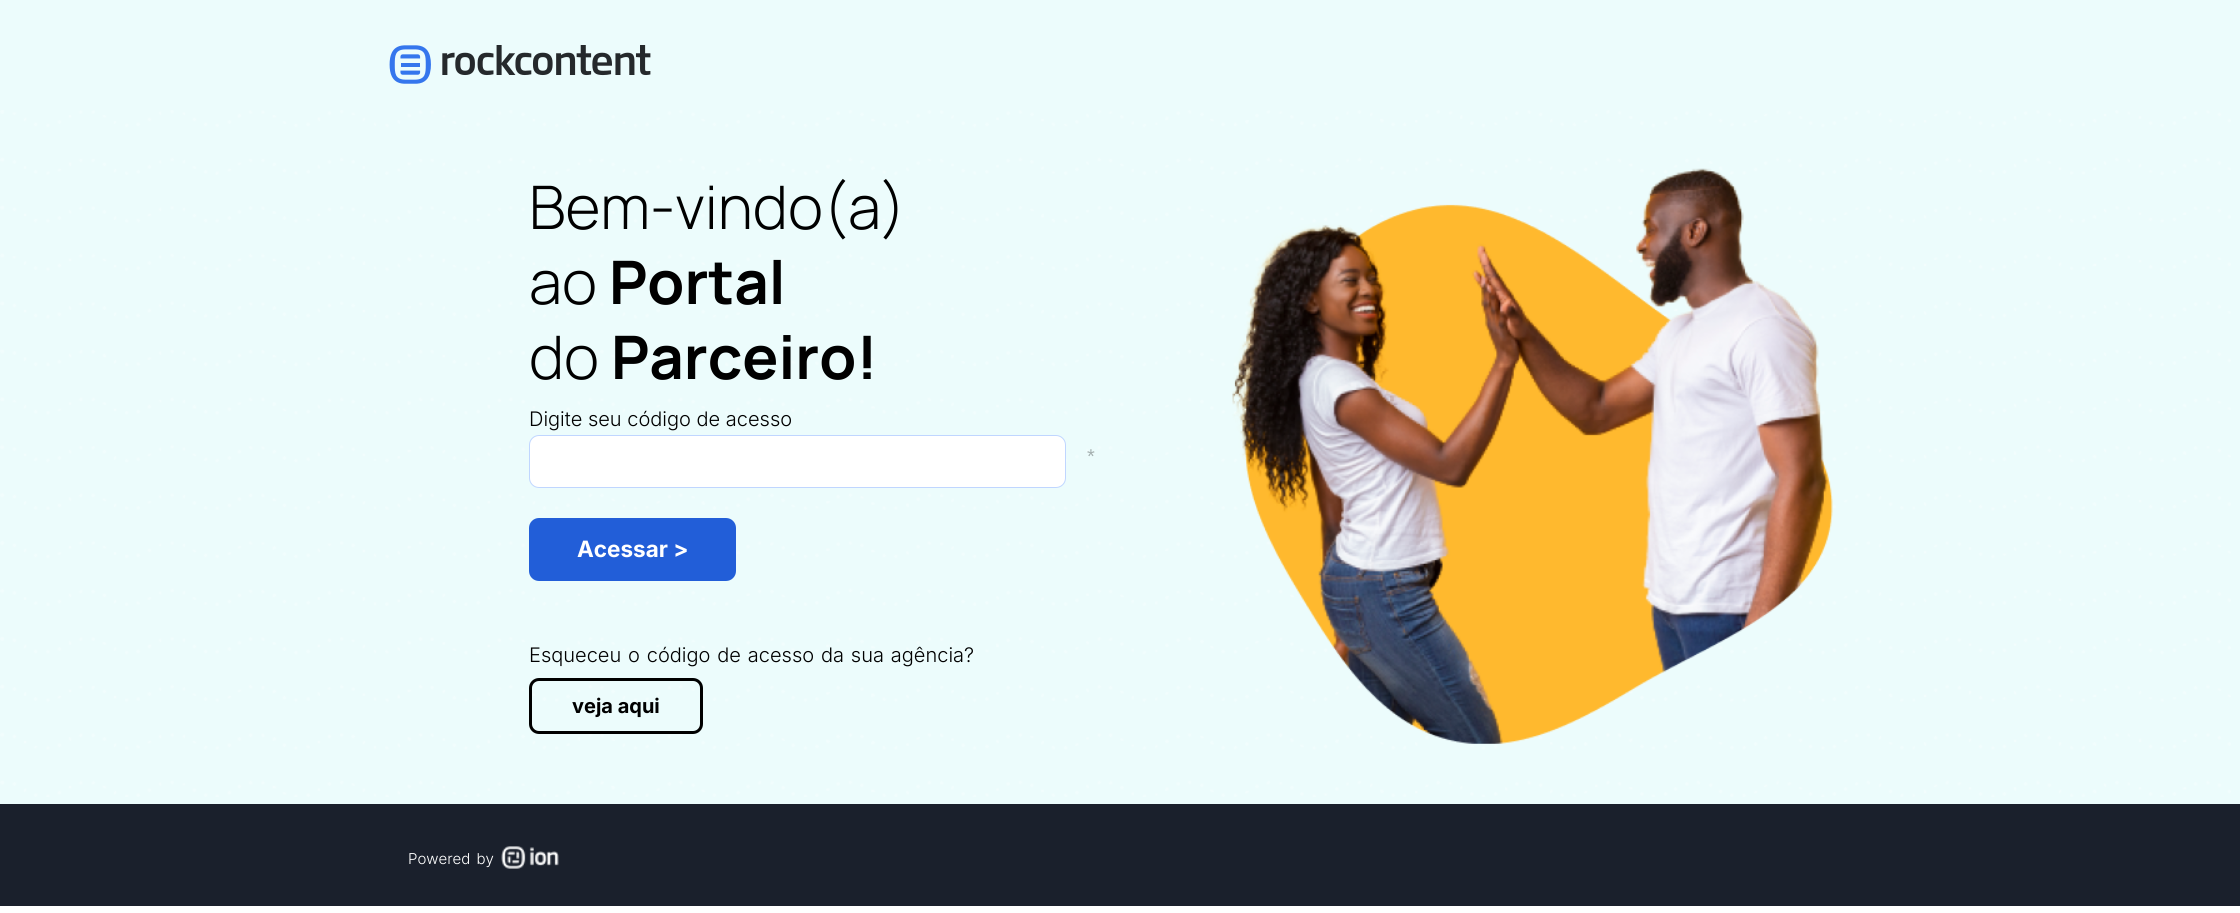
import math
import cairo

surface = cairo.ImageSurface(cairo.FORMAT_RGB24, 2240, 913)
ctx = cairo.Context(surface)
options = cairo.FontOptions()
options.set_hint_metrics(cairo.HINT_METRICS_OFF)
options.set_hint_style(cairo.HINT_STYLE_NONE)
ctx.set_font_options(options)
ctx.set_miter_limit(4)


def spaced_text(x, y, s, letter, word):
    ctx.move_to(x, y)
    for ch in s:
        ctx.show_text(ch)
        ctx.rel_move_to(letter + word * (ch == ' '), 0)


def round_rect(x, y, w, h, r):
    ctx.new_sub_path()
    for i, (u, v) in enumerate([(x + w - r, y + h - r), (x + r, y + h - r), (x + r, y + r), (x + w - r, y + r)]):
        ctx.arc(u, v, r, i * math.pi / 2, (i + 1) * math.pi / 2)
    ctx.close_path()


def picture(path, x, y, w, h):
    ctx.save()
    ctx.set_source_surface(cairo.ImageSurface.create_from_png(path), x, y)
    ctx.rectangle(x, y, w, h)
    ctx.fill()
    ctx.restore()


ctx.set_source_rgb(1, 1, 1)
ctx.paint()
ctx.set_source_rgb(0.925, 0.988, 0.988)
ctx.rectangle(0, 0, 2240, 804)
ctx.fill()
picture("img1.png", 389, 45, 262, 39)
picture("img2.png", 0, 110, 2231, 687)
ctx.select_font_face("Manrope Light")
ctx.set_font_size(60)
ctx.set_source_rgb(0, 0, 0)
ctx.move_to(529, 229)
ctx.show_text("Bem-vindo(a)")
ctx.move_to(529, 304)
ctx.show_text("ao")
ctx.select_font_face("Manrope", cairo.FONT_SLANT_NORMAL, cairo.FONT_WEIGHT_BOLD)
ctx.move_to(609, 304)
ctx.show_text("Portal")
ctx.select_font_face("Manrope Light")
ctx.move_to(529, 379)
ctx.show_text("do")
ctx.select_font_face("Manrope", cairo.FONT_SLANT_NORMAL, cairo.FONT_WEIGHT_BOLD)
ctx.move_to(611, 379)
ctx.show_text("Parceiro!")
ctx.select_font_face("Inter Light")
ctx.set_font_size(20)
ctx.move_to(529, 426)
ctx.show_text("Digite seu código de acesso")
ctx.set_source_rgb(1, 1, 1)
round_rect(529.5, 435.5, 536, 52, 9.5)
ctx.fill_preserve()
ctx.set_source_rgb(0.753, 0.839, 1)
ctx.set_line_width(1)
ctx.stroke()
ctx.select_font_face("Liberation Sans")
ctx.set_source_rgb(0.647, 0.69, 0.69)
ctx.move_to(1087, 463)
ctx.show_text("*")
ctx.set_source_rgb(0.133, 0.369, 0.847)
round_rect(530.5, 519.5, 204, 60, 8.5)
ctx.fill_preserve()
ctx.set_line_width(3)
ctx.stroke()
ctx.select_font_face("Inter", cairo.FONT_SLANT_NORMAL, cairo.FONT_WEIGHT_BOLD)
ctx.set_font_size(22.5)
ctx.set_source_rgb(1, 1, 1)
ctx.move_to(577, 557)
ctx.show_text("Acessar >")
ctx.select_font_face("Inter Light")
ctx.set_font_size(20)
ctx.set_source_rgb(0, 0, 0)
spaced_text(529, 662, "Esqueceu o código de acesso da sua agência?", 0, 1.25)
round_rect(530.5, 679.5, 171, 53, 8.5)
ctx.stroke()
ctx.select_font_face("Inter", cairo.FONT_SLANT_NORMAL, cairo.FONT_WEIGHT_BOLD)
ctx.move_to(572, 713)
ctx.show_text("veja aqui")
picture("img3.png", 1232, 168, 601, 576)
ctx.set_source_rgb(0.102, 0.125, 0.173)
ctx.rectangle(0, 804, 2240, 102)
ctx.fill()
ctx.select_font_face("Inter Light")
ctx.set_font_size(15)
ctx.set_source_rgb(1, 1, 1)
spaced_text(408, 864, "Powered by", 0, 2)
picture("img4.png", 501, 846, 58, 23)
surface.write_to_png("page.png")
